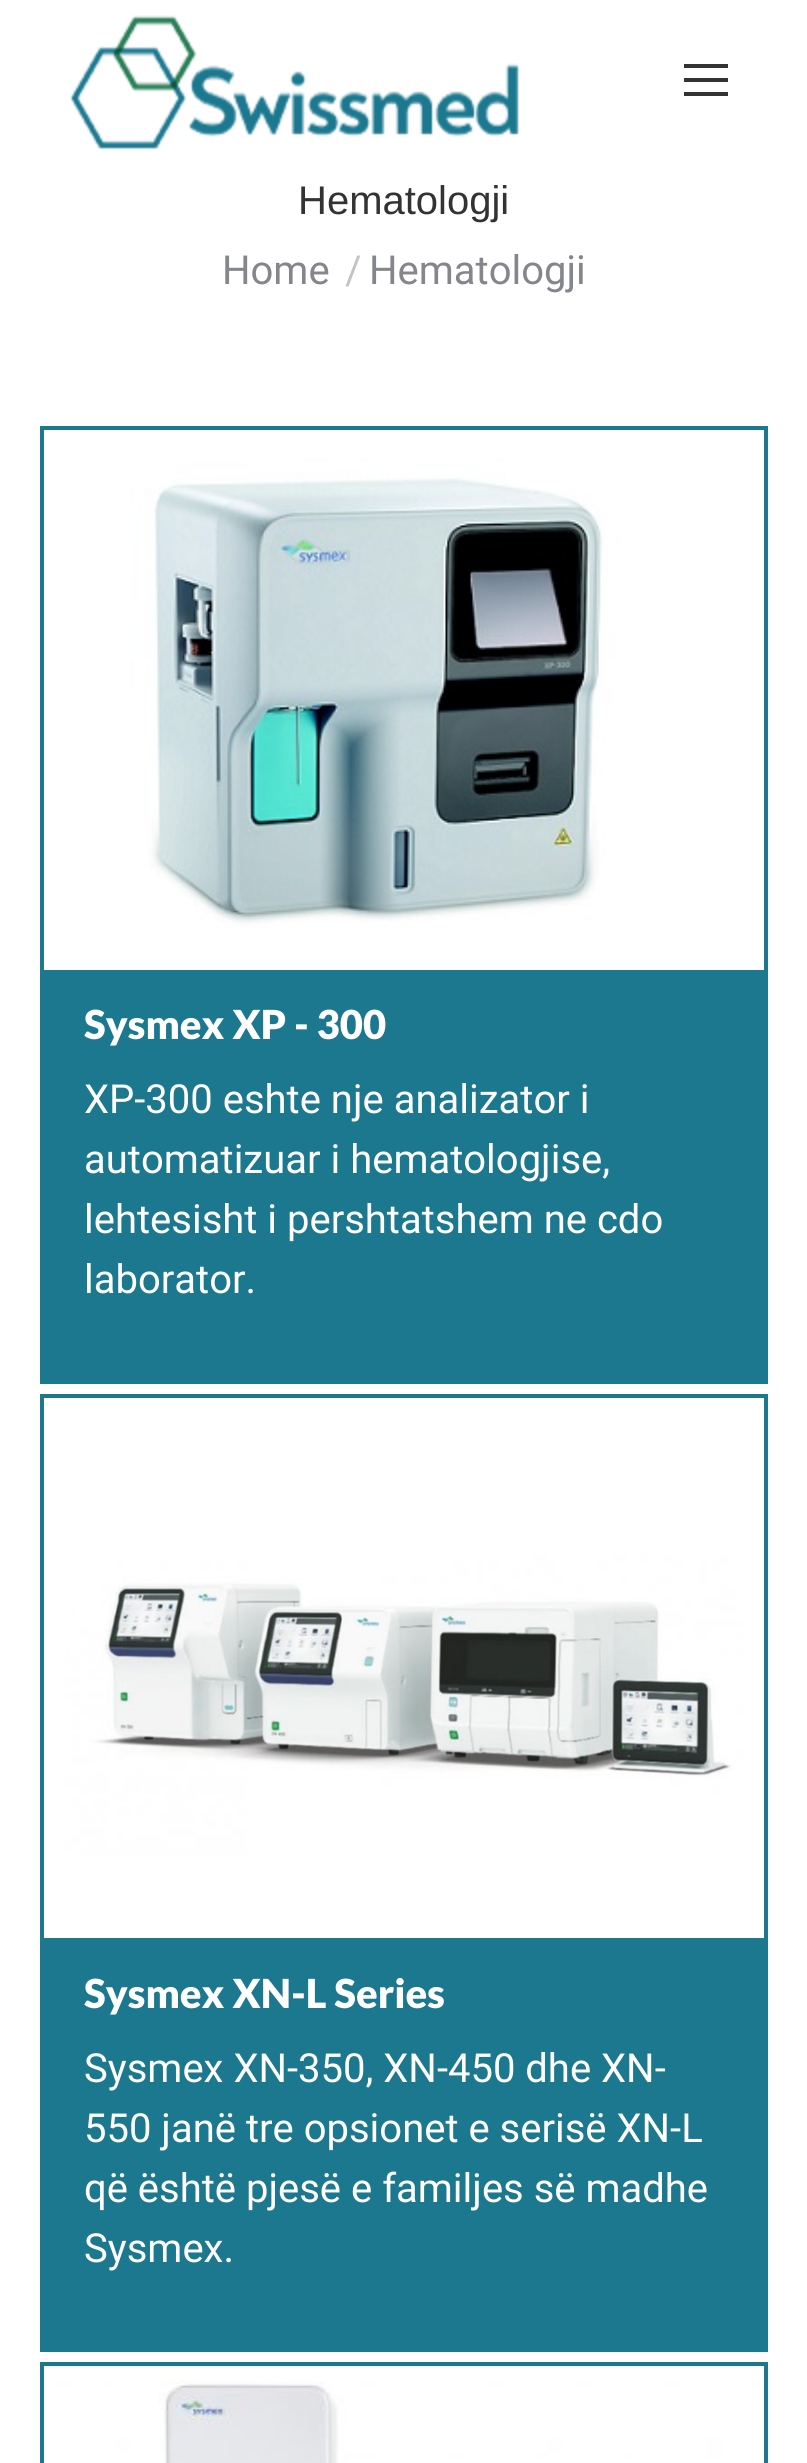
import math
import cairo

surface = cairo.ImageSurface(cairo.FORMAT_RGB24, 807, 2463)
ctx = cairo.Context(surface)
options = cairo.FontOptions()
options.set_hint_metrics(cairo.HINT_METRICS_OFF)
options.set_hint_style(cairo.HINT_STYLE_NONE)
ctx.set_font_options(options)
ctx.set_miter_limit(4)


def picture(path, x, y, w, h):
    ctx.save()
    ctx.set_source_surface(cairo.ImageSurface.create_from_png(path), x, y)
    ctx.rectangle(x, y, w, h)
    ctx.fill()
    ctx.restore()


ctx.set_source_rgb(1, 1, 1)
ctx.paint()
picture("img1.png", 69, 15, 450, 135)
ctx.set_source_rgb(0.2, 0.2, 0.2)
ctx.rectangle(684, 64, 44, 4)
ctx.fill()
ctx.rectangle(684, 78, 44, 4)
ctx.fill()
ctx.rectangle(684, 92, 44, 4)
ctx.fill()
ctx.select_font_face("Liberation Sans")
ctx.set_font_size(40)
ctx.move_to(298, 214)
ctx.show_text("Hematologji")
ctx.select_font_face("Roboto")
ctx.set_source_rgb(0.522, 0.525, 0.549)
ctx.move_to(222, 284)
ctx.show_text("Home")
ctx.set_source_rgb(0.761, 0.765, 0.776)
ctx.move_to(345, 284)
ctx.show_text("/")
ctx.set_source_rgb(0.522, 0.525, 0.549)
ctx.move_to(369, 284)
ctx.show_text("Hematologji")
ctx.set_source_rgb(0.11, 0.471, 0.561)
ctx.rectangle(40, 426, 728, 958)
ctx.fill()
picture("img2.png", 44, 430, 720, 540)
ctx.select_font_face("Lato Black")
ctx.set_source_rgb(1, 1, 1)
ctx.move_to(84, 1039)
ctx.show_text("Sysmex XP - 300")
ctx.select_font_face("Roboto")
ctx.move_to(84, 1113)
ctx.show_text("XP-300 eshte nje analizator i")
ctx.move_to(84, 1173)
ctx.show_text("automatizuar i hematologjise,")
ctx.move_to(84, 1233)
ctx.show_text("lehtesisht i pershtatshem ne cdo")
ctx.move_to(84, 1293)
ctx.show_text("laborator.")
ctx.set_source_rgb(0.11, 0.471, 0.561)
ctx.rectangle(40, 1394, 728, 958)
ctx.fill()
picture("img3.png", 44, 1398, 720, 540)
ctx.select_font_face("Lato Black")
ctx.set_source_rgb(1, 1, 1)
ctx.move_to(84, 2008)
ctx.show_text("Sysmex XN-L Series")
ctx.select_font_face("Roboto")
ctx.move_to(84, 2082)
ctx.show_text("Sysmex XN-350, XN-450 dhe XN-")
ctx.move_to(84, 2142)
ctx.show_text("550 janë tre opsionet e serisë XN-L")
ctx.move_to(84, 2202)
ctx.show_text("që është pjesë e familjes së madhe")
ctx.move_to(84, 2262)
ctx.show_text("Sysmex.")
ctx.set_source_rgb(0.11, 0.471, 0.561)
ctx.rectangle(40, 2362, 728, 101)
ctx.fill()
picture("img4.png", 44, 2366, 720, 97)
surface.write_to_png("page.png")
